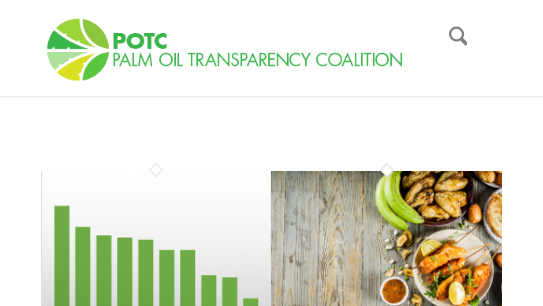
import math
import cairo

surface = cairo.ImageSurface(cairo.FORMAT_RGB24, 543, 306)
ctx = cairo.Context(surface)
options = cairo.FontOptions()
options.set_hint_metrics(cairo.HINT_METRICS_OFF)
options.set_hint_style(cairo.HINT_STYLE_NONE)
ctx.set_font_options(options)
ctx.set_miter_limit(4)


def round_rect(x, y, w, h, r):
    ctx.new_sub_path()
    for i, (u, v) in enumerate([(x + w - r, y + h - r), (x + r, y + h - r), (x + r, y + r), (x + w - r, y + r)]):
        ctx.arc(u, v, r, i * math.pi / 2, (i + 1) * math.pi / 2)
    ctx.close_path()


def shadow(x, y, w, h, r, blur, alpha):
    ctx.push_group_with_content(cairo.CONTENT_ALPHA)
    ctx.set_operator(cairo.OPERATOR_SOURCE)
    for i in range(15, -16, -2):
        e = blur * i / 6
        if min(w, h) + 2 * e > 0:
            ctx.set_source_rgba(0, 0, 0, alpha * math.erfc((i - 1) / 8.5) / 2)
            round_rect(x - e, y - e, w + 2 * e, h + 2 * e, max(0, min(r + e + blur * .6, min(w, h) / 2 + e)))
            ctx.fill()
    ctx.mask(ctx.pop_group())


def picture(path, x, y, w, h):
    ctx.save()
    ctx.set_source_surface(cairo.ImageSurface.create_from_png(path), x, y)
    ctx.rectangle(x, y, w, h)
    ctx.fill()
    ctx.restore()


ctx.set_source_rgb(1, 1, 1)
ctx.paint()
ctx.save()
ctx.rectangle(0, 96, 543, 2)
ctx.clip()
ctx.set_source_rgb(0, 0, 0)
shadow(-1, -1, 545, 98, 0, 1, 0.1)
ctx.restore()
picture("img1.png", 47, 18, 356, 64)
picture("img2.png", 449, 26, 18, 20)
picture("img3.png", 41, 171, 230, 135)
ctx.new_path()
ctx.move_to(156, 163.5)
ctx.line_to(162.5, 170)
ctx.line_to(156, 176.5)
ctx.line_to(149.5, 170)
ctx.close_path()
ctx.set_source_rgb(0.882, 0.882, 0.882)
ctx.set_line_width(1)
ctx.stroke()
picture("img4.png", 271, 171, 231, 135)
ctx.set_source_rgb(1, 1, 1)
ctx.new_path()
ctx.move_to(387, 163)
ctx.line_to(394, 170)
ctx.line_to(387, 177)
ctx.line_to(380, 170)
ctx.close_path()
ctx.fill()
ctx.new_path()
ctx.move_to(387, 163.5)
ctx.line_to(393, 170)
ctx.line_to(387, 176.5)
ctx.line_to(380.5, 170)
ctx.close_path()
ctx.set_source_rgb(0.882, 0.882, 0.882)
ctx.stroke()
surface.write_to_png("page.png")
